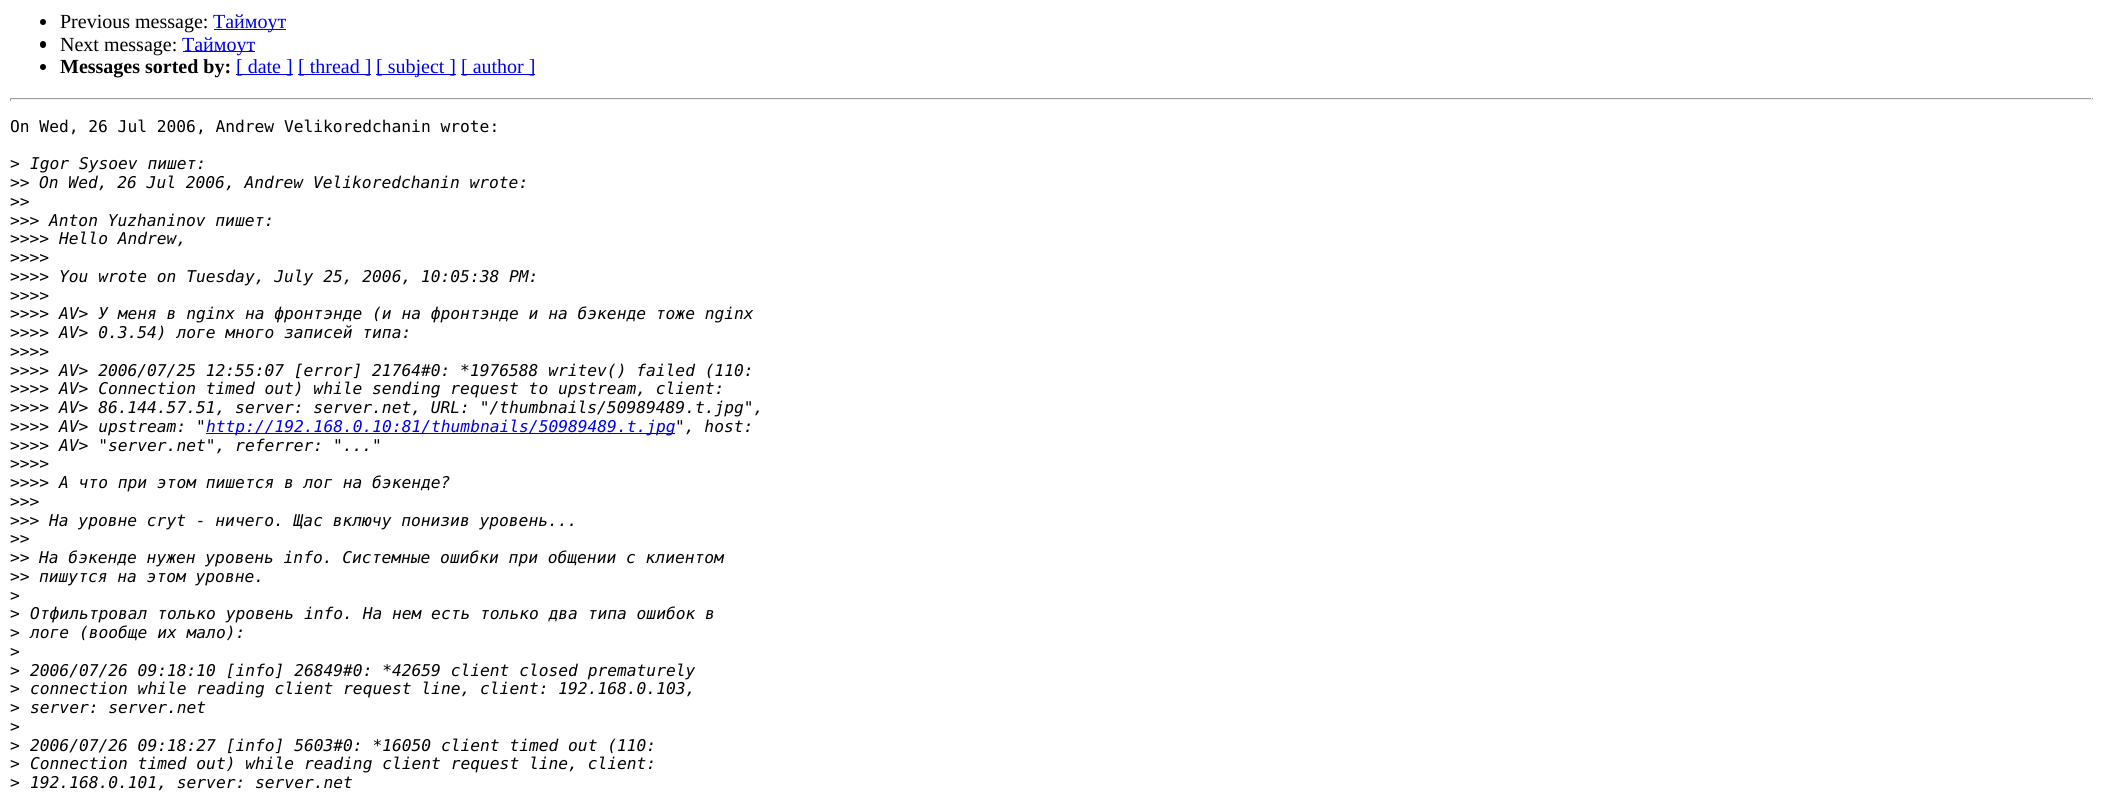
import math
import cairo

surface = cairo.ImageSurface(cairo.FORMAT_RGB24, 2102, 807)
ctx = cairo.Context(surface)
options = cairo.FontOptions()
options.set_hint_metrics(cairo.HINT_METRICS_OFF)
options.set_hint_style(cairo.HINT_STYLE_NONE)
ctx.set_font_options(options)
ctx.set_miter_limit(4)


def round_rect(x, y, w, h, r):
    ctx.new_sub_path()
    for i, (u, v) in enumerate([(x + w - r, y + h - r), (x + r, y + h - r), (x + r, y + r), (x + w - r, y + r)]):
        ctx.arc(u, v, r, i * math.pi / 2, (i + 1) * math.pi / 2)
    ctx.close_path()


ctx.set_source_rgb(1, 1, 1)
ctx.paint()
ctx.set_source_rgb(0, 0, 0)
ctx.arc(43, 22, 3, 0, 2 * math.pi)
ctx.fill()
ctx.select_font_face("Liberation Serif")
ctx.set_font_size(20)
ctx.move_to(60, 28)
ctx.show_text("Previous message:")
ctx.set_source_rgb(0, 0, 0.933)
ctx.rectangle(214, 29, 72, 1)
ctx.fill()
ctx.move_to(213, 28)
ctx.show_text("Таймоут")
ctx.set_source_rgb(0, 0, 0)
round_rect(40, 41, 6, 7, 3)
ctx.fill()
ctx.move_to(60, 51)
ctx.show_text("Next message:")
ctx.set_source_rgb(0, 0, 0.933)
ctx.rectangle(183, 51, 72, 1)
ctx.fill()
ctx.move_to(182, 51)
ctx.show_text("Таймоут")
ctx.set_source_rgb(0, 0, 0)
ctx.new_path()
ctx.arc(43, 67, 3, 0, 2 * math.pi)
ctx.fill()
ctx.select_font_face("Liberation Serif", cairo.FONT_SLANT_NORMAL, cairo.FONT_WEIGHT_BOLD)
ctx.move_to(60, 73)
ctx.show_text("Messages sorted by:")
ctx.set_source_rgb(0, 0, 0.933)
ctx.rectangle(236, 74, 57, 1)
ctx.fill()
ctx.select_font_face("Liberation Serif")
ctx.move_to(236, 73)
ctx.show_text("[ date ]")
ctx.rectangle(298, 74, 73, 1)
ctx.fill()
ctx.move_to(298, 73)
ctx.show_text("[ thread ]")
ctx.rectangle(376, 74, 80, 1)
ctx.fill()
ctx.move_to(376, 73)
ctx.show_text("[ subject ]")
ctx.rectangle(461, 74, 74, 1)
ctx.fill()
ctx.move_to(461, 73)
ctx.show_text("[ author ]")
ctx.set_source_rgb(0.624, 0.624, 0.624)
ctx.rectangle(10, 98, 2083, 1)
ctx.fill()
ctx.set_source_rgb(0.933, 0.933, 0.933)
ctx.rectangle(2091, 98, 1, 3)
ctx.fill()
ctx.rectangle(10, 99, 2083, 1)
ctx.fill()
ctx.set_source_rgb(0.624, 0.624, 0.624)
ctx.rectangle(10, 98, 1, 3)
ctx.fill()
ctx.select_font_face("DejaVu Sans Mono")
ctx.set_font_size(16.25)
ctx.set_source_rgb(0, 0, 0)
ctx.move_to(10, 132)
ctx.show_text("On Wed, 26 Jul 2006, Andrew Velikoredchanin wrote:")
ctx.move_to(10, 169)
ctx.show_text(">")
ctx.select_font_face("DejaVu Sans Mono", cairo.FONT_SLANT_ITALIC)
ctx.move_to(30, 169)
ctx.show_text("Igor Sysoev пишет:")
ctx.select_font_face("DejaVu Sans Mono")
ctx.move_to(10, 188)
ctx.show_text(">>")
ctx.select_font_face("DejaVu Sans Mono", cairo.FONT_SLANT_ITALIC)
ctx.move_to(39, 188)
ctx.show_text("On Wed, 26 Jul 2006, Andrew Velikoredchanin wrote:")
ctx.select_font_face("DejaVu Sans Mono")
ctx.move_to(10, 207)
ctx.show_text(">>")
ctx.move_to(10, 226)
ctx.show_text(">>>")
ctx.select_font_face("DejaVu Sans Mono", cairo.FONT_SLANT_ITALIC)
ctx.move_to(49, 226)
ctx.show_text("Anton Yuzhaninov пишет:")
ctx.select_font_face("DejaVu Sans Mono")
ctx.move_to(10, 244)
ctx.show_text(">>>>")
ctx.select_font_face("DejaVu Sans Mono", cairo.FONT_SLANT_ITALIC)
ctx.move_to(59, 244)
ctx.show_text("Hello Andrew,")
ctx.select_font_face("DejaVu Sans Mono")
ctx.move_to(10, 263)
ctx.show_text(">>>>")
ctx.move_to(10, 282)
ctx.show_text(">>>>")
ctx.select_font_face("DejaVu Sans Mono", cairo.FONT_SLANT_ITALIC)
ctx.move_to(59, 282)
ctx.show_text("You wrote on Tuesday, July 25, 2006, 10:05:38 PM:")
ctx.select_font_face("DejaVu Sans Mono")
ctx.move_to(10, 301)
ctx.show_text(">>>>")
ctx.move_to(10, 319)
ctx.show_text(">>>>")
ctx.select_font_face("DejaVu Sans Mono", cairo.FONT_SLANT_ITALIC)
ctx.move_to(59, 319)
ctx.show_text("AV> У меня в nginx на фронтэнде (и на фронтэнде и на бэкенде тоже nginx")
ctx.select_font_face("DejaVu Sans Mono")
ctx.move_to(10, 338)
ctx.show_text(">>>>")
ctx.select_font_face("DejaVu Sans Mono", cairo.FONT_SLANT_ITALIC)
ctx.move_to(59, 338)
ctx.show_text("AV> 0.3.54) логе много записей типа:")
ctx.select_font_face("DejaVu Sans Mono")
ctx.move_to(10, 357)
ctx.show_text(">>>>")
ctx.move_to(10, 376)
ctx.show_text(">>>>")
ctx.select_font_face("DejaVu Sans Mono", cairo.FONT_SLANT_ITALIC)
ctx.move_to(59, 376)
ctx.show_text("AV> 2006/07/25 12:55:07 [error] 21764#0: *1976588 writev() failed (110:")
ctx.select_font_face("DejaVu Sans Mono")
ctx.move_to(10, 394)
ctx.show_text(">>>>")
ctx.select_font_face("DejaVu Sans Mono", cairo.FONT_SLANT_ITALIC)
ctx.move_to(59, 394)
ctx.show_text("AV> Connection timed out) while sending request to upstream, client:")
ctx.select_font_face("DejaVu Sans Mono")
ctx.move_to(10, 413)
ctx.show_text(">>>>")
ctx.select_font_face("DejaVu Sans Mono", cairo.FONT_SLANT_ITALIC)
ctx.move_to(59, 413)
ctx.show_text("AV> 86.144.57.51, server: server.net, URL: \"/thumbnails/50989489.t.jpg\",")
ctx.select_font_face("DejaVu Sans Mono")
ctx.move_to(10, 432)
ctx.show_text(">>>>")
ctx.select_font_face("DejaVu Sans Mono", cairo.FONT_SLANT_ITALIC)
ctx.move_to(59, 432)
ctx.show_text("AV> upstream: \"")
ctx.set_source_rgb(0, 0, 0.933)
ctx.rectangle(206, 433, 469, 1)
ctx.fill()
ctx.move_to(206, 432)
ctx.show_text("http://192.168.0.10:81/thumbnails/50989489.t.jpg")
ctx.set_source_rgb(0, 0, 0)
ctx.move_to(675, 432)
ctx.show_text("\", host:")
ctx.select_font_face("DejaVu Sans Mono")
ctx.move_to(10, 451)
ctx.show_text(">>>>")
ctx.select_font_face("DejaVu Sans Mono", cairo.FONT_SLANT_ITALIC)
ctx.move_to(59, 451)
ctx.show_text("AV> \"server.net\", referrer: \"...\"")
ctx.select_font_face("DejaVu Sans Mono")
ctx.move_to(10, 469)
ctx.show_text(">>>>")
ctx.move_to(10, 488)
ctx.show_text(">>>>")
ctx.select_font_face("DejaVu Sans Mono", cairo.FONT_SLANT_ITALIC)
ctx.move_to(59, 488)
ctx.show_text("А что при этом пишется в лог на бэкенде?")
ctx.select_font_face("DejaVu Sans Mono")
ctx.move_to(10, 507)
ctx.show_text(">>>")
ctx.move_to(10, 526)
ctx.show_text(">>>")
ctx.select_font_face("DejaVu Sans Mono", cairo.FONT_SLANT_ITALIC)
ctx.move_to(49, 526)
ctx.show_text("На уровне cryt - ничего. Щас включу понизив уровень...")
ctx.select_font_face("DejaVu Sans Mono")
ctx.move_to(10, 544)
ctx.show_text(">>")
ctx.move_to(10, 563)
ctx.show_text(">>")
ctx.select_font_face("DejaVu Sans Mono", cairo.FONT_SLANT_ITALIC)
ctx.move_to(39, 563)
ctx.show_text("На бэкенде нужен уровень info. Системные ошибки при общении с клиентом")
ctx.select_font_face("DejaVu Sans Mono")
ctx.move_to(10, 582)
ctx.show_text(">>")
ctx.select_font_face("DejaVu Sans Mono", cairo.FONT_SLANT_ITALIC)
ctx.move_to(39, 582)
ctx.show_text("пишутся на этом уровне.")
ctx.select_font_face("DejaVu Sans Mono")
ctx.move_to(10, 601)
ctx.show_text(">")
ctx.move_to(10, 619)
ctx.show_text(">")
ctx.select_font_face("DejaVu Sans Mono", cairo.FONT_SLANT_ITALIC)
ctx.move_to(30, 619)
ctx.show_text("Отфильтровал только уровень info. На нем есть только два типа ошибок в")
ctx.select_font_face("DejaVu Sans Mono")
ctx.move_to(10, 638)
ctx.show_text(">")
ctx.select_font_face("DejaVu Sans Mono", cairo.FONT_SLANT_ITALIC)
ctx.move_to(30, 638)
ctx.show_text("логе (вообще их мало):")
ctx.select_font_face("DejaVu Sans Mono")
ctx.move_to(10, 657)
ctx.show_text(">")
ctx.move_to(10, 676)
ctx.show_text(">")
ctx.select_font_face("DejaVu Sans Mono", cairo.FONT_SLANT_ITALIC)
ctx.move_to(30, 676)
ctx.show_text("2006/07/26 09:18:10 [info] 26849#0: *42659 client closed prematurely")
ctx.select_font_face("DejaVu Sans Mono")
ctx.move_to(10, 694)
ctx.show_text(">")
ctx.select_font_face("DejaVu Sans Mono", cairo.FONT_SLANT_ITALIC)
ctx.move_to(30, 694)
ctx.show_text("connection while reading client request line, client: 192.168.0.103,")
ctx.select_font_face("DejaVu Sans Mono")
ctx.move_to(10, 713)
ctx.show_text(">")
ctx.select_font_face("DejaVu Sans Mono", cairo.FONT_SLANT_ITALIC)
ctx.move_to(30, 713)
ctx.show_text("server: server.net")
ctx.select_font_face("DejaVu Sans Mono")
ctx.move_to(10, 732)
ctx.show_text(">")
ctx.move_to(10, 751)
ctx.show_text(">")
ctx.select_font_face("DejaVu Sans Mono", cairo.FONT_SLANT_ITALIC)
ctx.move_to(30, 751)
ctx.show_text("2006/07/26 09:18:27 [info] 5603#0: *16050 client timed out (110:")
ctx.select_font_face("DejaVu Sans Mono")
ctx.move_to(10, 769)
ctx.show_text(">")
ctx.select_font_face("DejaVu Sans Mono", cairo.FONT_SLANT_ITALIC)
ctx.move_to(30, 769)
ctx.show_text("Connection timed out) while reading client request line, client:")
ctx.select_font_face("DejaVu Sans Mono")
ctx.move_to(10, 788)
ctx.show_text(">")
ctx.select_font_face("DejaVu Sans Mono", cairo.FONT_SLANT_ITALIC)
ctx.move_to(30, 788)
ctx.show_text("192.168.0.101, server: server.net")
surface.write_to_png("page.png")
